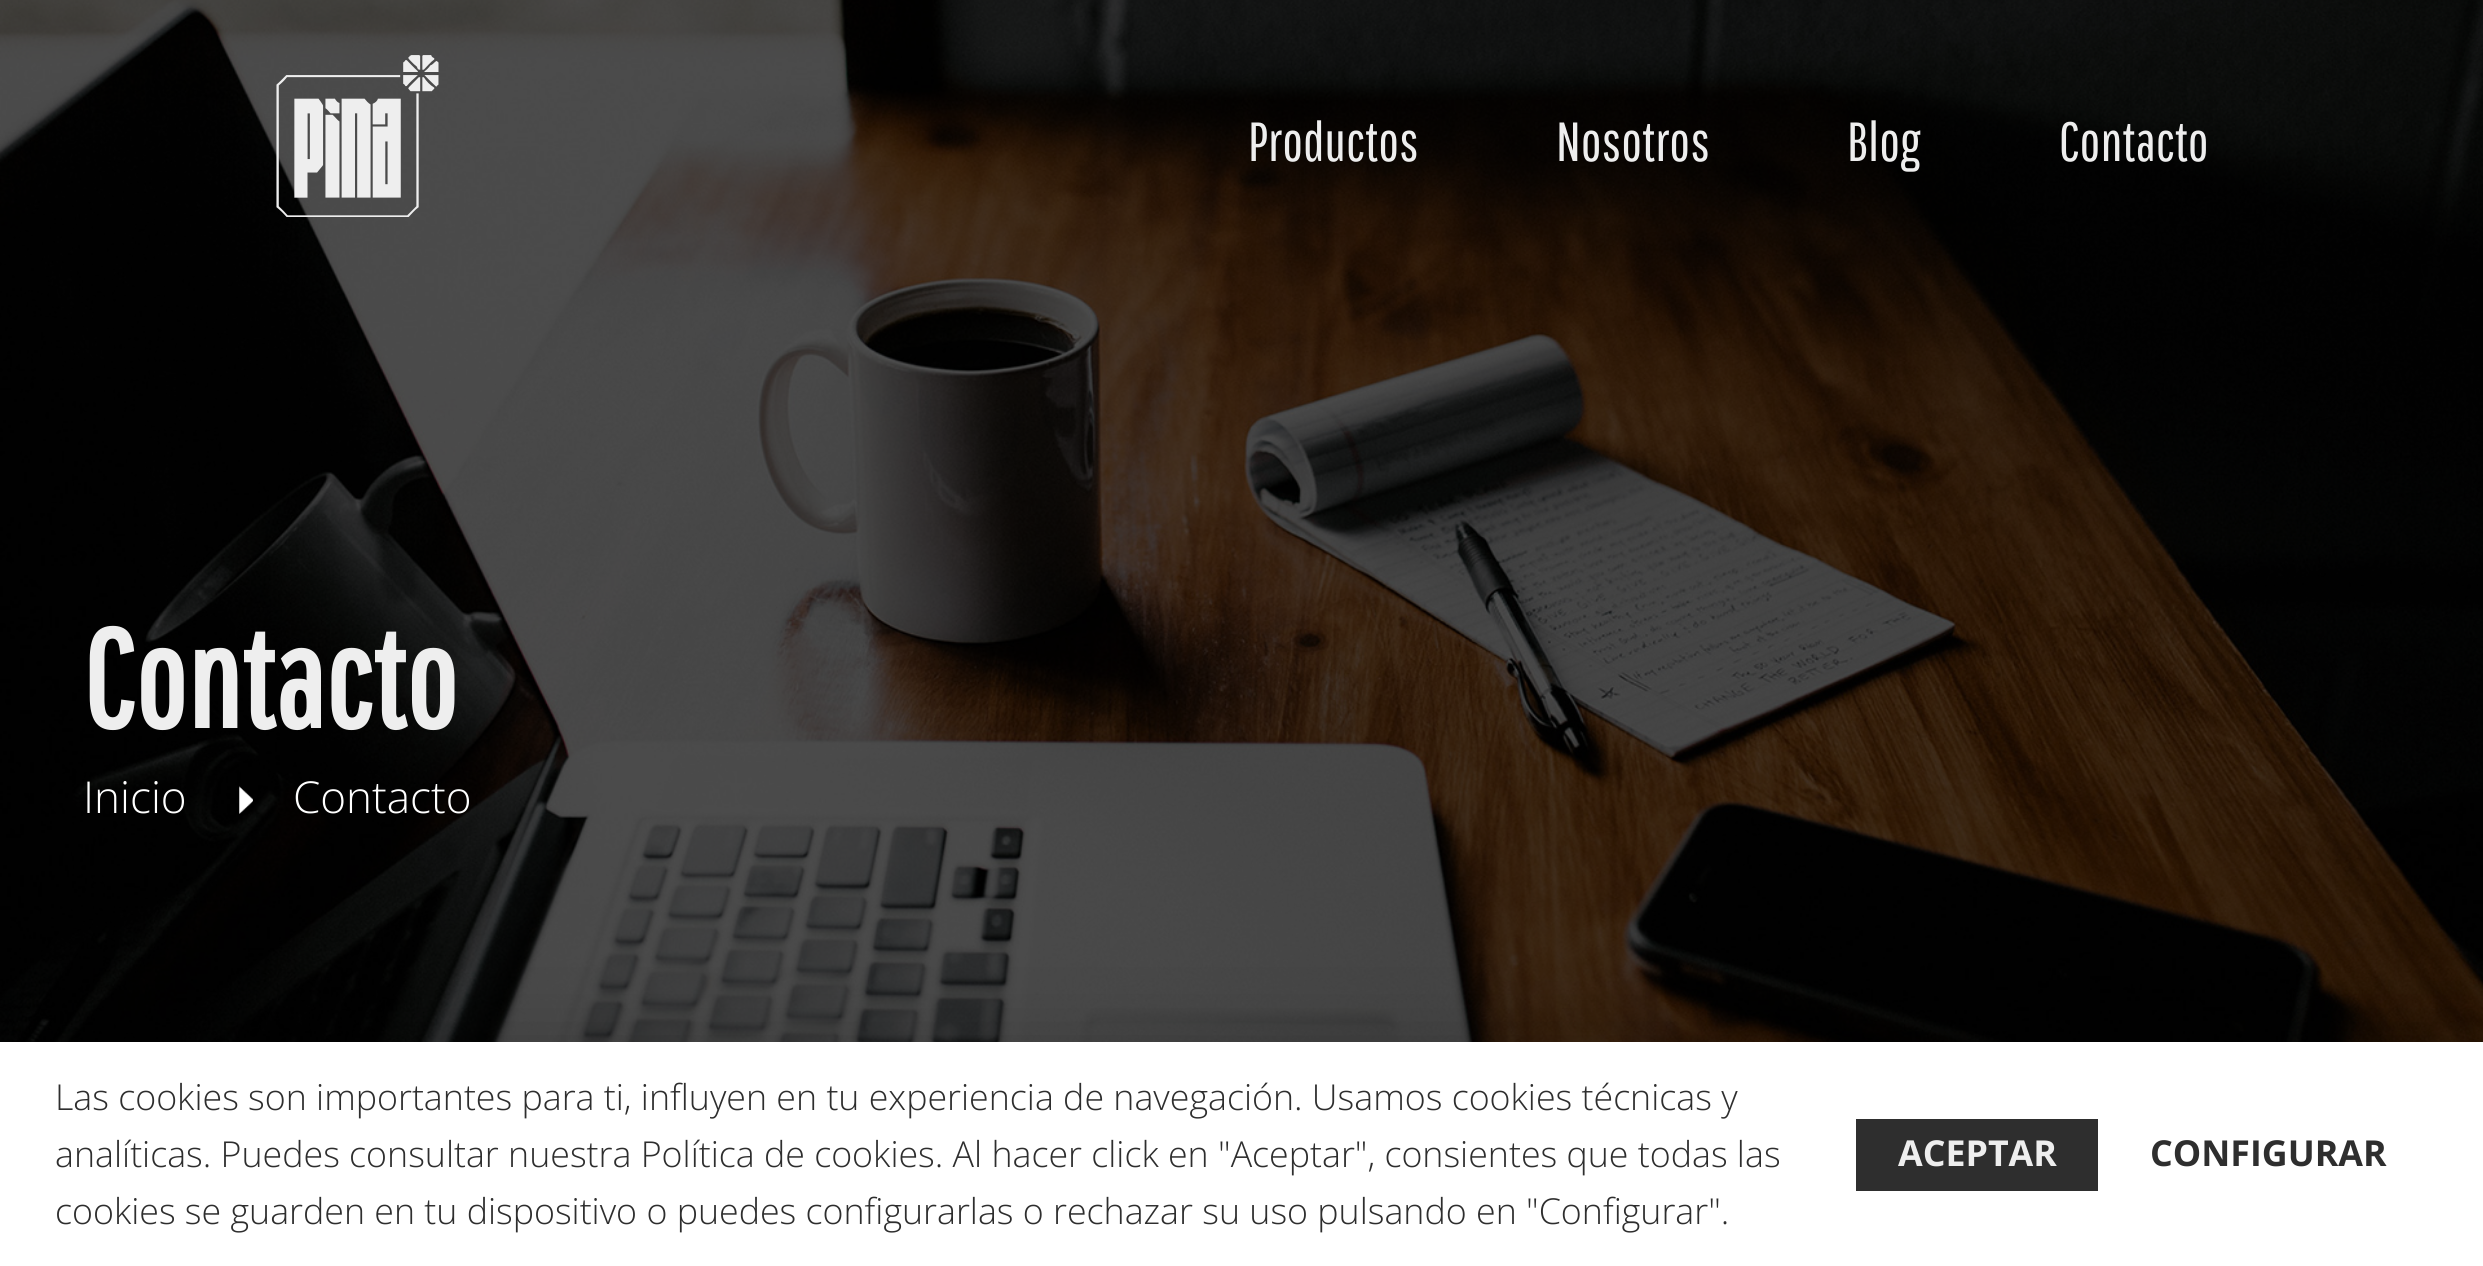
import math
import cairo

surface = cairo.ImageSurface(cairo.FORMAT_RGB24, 2483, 1266)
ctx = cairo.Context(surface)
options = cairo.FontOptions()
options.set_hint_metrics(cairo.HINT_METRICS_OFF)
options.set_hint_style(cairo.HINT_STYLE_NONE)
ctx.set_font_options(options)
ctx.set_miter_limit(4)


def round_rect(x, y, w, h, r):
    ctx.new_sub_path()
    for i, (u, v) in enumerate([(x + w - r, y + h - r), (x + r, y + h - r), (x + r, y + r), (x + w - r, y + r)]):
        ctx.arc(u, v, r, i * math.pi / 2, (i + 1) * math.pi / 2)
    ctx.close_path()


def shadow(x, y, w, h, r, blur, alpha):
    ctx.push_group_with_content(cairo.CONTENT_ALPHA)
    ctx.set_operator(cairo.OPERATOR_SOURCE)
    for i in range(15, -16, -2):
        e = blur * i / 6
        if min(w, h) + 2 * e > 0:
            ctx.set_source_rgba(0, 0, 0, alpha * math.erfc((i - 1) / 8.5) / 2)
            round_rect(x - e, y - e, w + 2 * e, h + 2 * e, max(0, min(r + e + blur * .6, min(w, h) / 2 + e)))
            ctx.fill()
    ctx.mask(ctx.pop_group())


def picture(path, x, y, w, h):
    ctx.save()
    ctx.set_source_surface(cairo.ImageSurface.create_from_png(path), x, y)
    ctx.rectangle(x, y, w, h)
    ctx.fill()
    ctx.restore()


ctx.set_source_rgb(1, 1, 1)
ctx.paint()
picture("img2.png", 0, 0, 2483, 1042)
picture("img1.png", 276, 55, 163, 162)
ctx.select_font_face("Pathway Gothic One")
ctx.set_font_size(55)
ctx.set_source_rgb(0.933, 0.933, 0.933)
ctx.move_to(1248, 161)
ctx.show_text("Productos")
ctx.move_to(1556, 161)
ctx.show_text("Nosotros")
ctx.move_to(1847, 161)
ctx.show_text("Blog")
ctx.move_to(2059, 161)
ctx.show_text("Contacto")
ctx.select_font_face("Pathway Gothic One", cairo.FONT_SLANT_NORMAL, cairo.FONT_WEIGHT_BOLD)
ctx.set_font_size(137.5)
ctx.move_to(83, 728)
ctx.show_text("Contacto")
ctx.select_font_face("Open Sans Light")
ctx.set_font_size(44)
ctx.set_source_rgb(1, 1, 1)
ctx.move_to(83, 813)
ctx.show_text("Inicio")
picture("img3.png", 239, 786, 14, 28)
ctx.move_to(293, 813)
ctx.show_text("Contacto")
ctx.set_source_rgb(0, 0, 0)
shadow(0, 1042, 2483, 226, 0, 41, 0.2)
ctx.set_source_rgb(1, 1, 1)
ctx.rectangle(0, 1042, 2483, 224)
ctx.fill()
ctx.set_font_size(35.75)
ctx.set_source_rgb(0.18, 0.18, 0.18)
ctx.move_to(55, 1110)
ctx.show_text("Las cookies son importantes para ti, influyen en tu experiencia de navegación. Usamos cookies técnicas y")
ctx.move_to(55, 1167)
ctx.show_text("analíticas. Puedes consultar nuestra Política de cookies. Al hacer click en \"Aceptar\", consientes que todas las")
ctx.move_to(55, 1224)
ctx.show_text("cookies se guarden en tu dispositivo o puedes configurarlas o rechazar su uso pulsando en \"Configurar\".")
ctx.rectangle(1856, 1119, 242, 72)
ctx.fill()
ctx.select_font_face("Open Sans", cairo.FONT_SLANT_NORMAL, cairo.FONT_WEIGHT_BOLD)
ctx.set_source_rgb(0.933, 0.933, 0.933)
ctx.move_to(1898, 1166)
ctx.show_text("ACEPTAR")
ctx.set_source_rgb(0.18, 0.18, 0.18)
ctx.move_to(2150, 1166)
ctx.show_text("CONFIGURAR")
surface.write_to_png("page.png")
